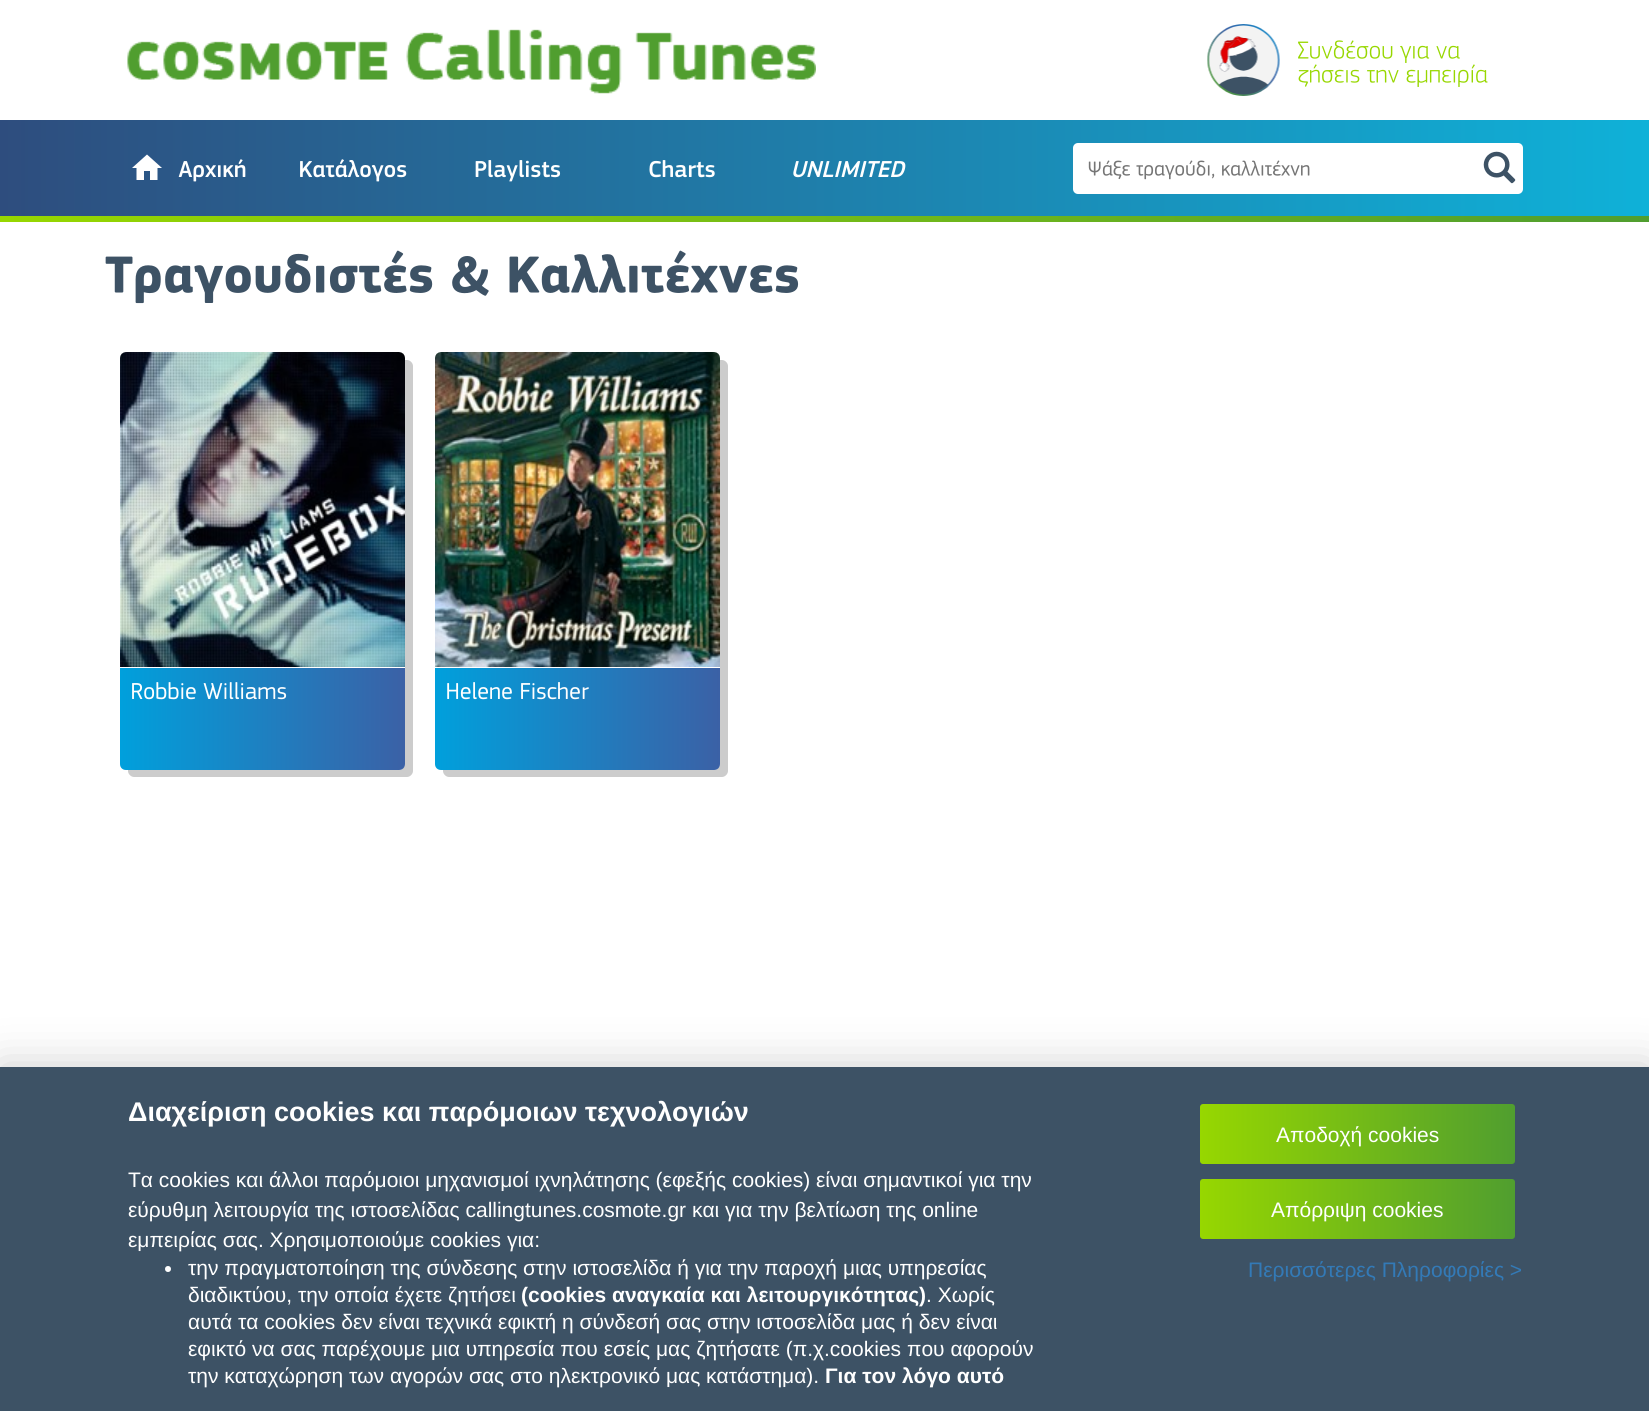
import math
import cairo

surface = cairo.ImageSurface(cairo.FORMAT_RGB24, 1649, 1411)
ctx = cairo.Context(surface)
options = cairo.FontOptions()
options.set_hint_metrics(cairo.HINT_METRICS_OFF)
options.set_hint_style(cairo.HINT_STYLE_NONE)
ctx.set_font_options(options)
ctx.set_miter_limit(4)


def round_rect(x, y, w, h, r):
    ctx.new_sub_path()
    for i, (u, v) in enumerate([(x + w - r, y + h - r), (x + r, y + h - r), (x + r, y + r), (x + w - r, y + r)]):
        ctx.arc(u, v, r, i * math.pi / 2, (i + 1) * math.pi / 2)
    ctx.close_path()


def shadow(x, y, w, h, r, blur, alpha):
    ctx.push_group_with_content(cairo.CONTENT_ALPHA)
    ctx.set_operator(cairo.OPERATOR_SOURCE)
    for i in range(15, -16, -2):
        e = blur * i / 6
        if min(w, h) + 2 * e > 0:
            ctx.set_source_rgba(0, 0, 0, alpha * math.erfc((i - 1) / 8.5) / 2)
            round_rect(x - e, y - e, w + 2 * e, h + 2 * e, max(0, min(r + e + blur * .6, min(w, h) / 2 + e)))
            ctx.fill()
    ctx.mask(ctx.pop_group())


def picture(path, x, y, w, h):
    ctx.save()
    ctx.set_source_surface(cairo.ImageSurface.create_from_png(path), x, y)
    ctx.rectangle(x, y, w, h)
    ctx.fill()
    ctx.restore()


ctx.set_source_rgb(1, 1, 1)
ctx.paint()
picture("img1.png", 127, 29, 689, 65)
picture("img2.png", 1207, 24, 73, 72)
picture("img3.png", 1298, 40, 162, 23)
picture("img4.png", 1298, 64, 190, 23)
gradient = cairo.LinearGradient(0, 168, 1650, 168)
gradient.add_color_stop_rgba(0, 0.18, 0.302, 0.494, 1)
gradient.add_color_stop_rgba(1, 0.059, 0.694, 0.847, 1)
ctx.set_source(gradient)
ctx.rectangle(0, 120, 1649, 96)
ctx.fill()
picture("img5.png", 132, 154, 30, 26)
picture("img6.png", 178, 159, 68, 23)
picture("img7.png", 300, 159, 107, 23)
picture("img8.png", 475, 160, 86, 22)
picture("img9.png", 649, 160, 66, 18)
picture("img10.png", 793, 161, 113, 17)
ctx.set_source_rgb(1, 1, 1)
round_rect(1073, 143, 450, 51, 5)
ctx.fill()
picture("img11.png", 1088, 160, 222, 20)
picture("img12.png", 1483, 151, 33, 33)
gradient = cairo.LinearGradient(0, 219, 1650, 219)
gradient.add_color_stop_rgba(0, 0.592, 0.843, 0, 1)
gradient.add_color_stop_rgba(1, 0.314, 0.62, 0.184, 1)
ctx.set_source(gradient)
ctx.rectangle(0, 216, 1649, 6)
ctx.fill()
picture("img13.png", 105, 250, 694, 54)
ctx.set_source_rgb(0.8, 0.8, 0.8)
ctx.new_path()
ctx.move_to(128, 770)
ctx.line_to(128, 771)
ctx.curve_to(128, 774, 131, 777, 134, 777)
ctx.line_to(407, 777)
ctx.curve_to(410, 777, 413, 774, 413, 771)
ctx.line_to(413, 366)
ctx.curve_to(413, 363, 410, 360, 407, 360)
ctx.line_to(405, 360)
ctx.line_to(405, 764)
ctx.curve_to(405, 767, 402, 770, 399, 770)
ctx.close_path()
ctx.fill()
picture("img14.png", 120, 352, 285, 315)
gradient = cairo.LinearGradient(120, 719, 405, 719)
gradient.add_color_stop_rgba(0, 0, 0.627, 0.863, 1)
gradient.add_color_stop_rgba(1, 0.231, 0.38, 0.651, 1)
ctx.set_source(gradient)
ctx.new_path()
ctx.move_to(120, 668)
ctx.line_to(405, 668)
ctx.line_to(405, 764)
ctx.curve_to(405, 767.5, 402.5, 770, 399, 770)
ctx.line_to(126, 770)
ctx.curve_to(122.5, 770, 120, 767.5, 120, 764)
ctx.close_path()
ctx.fill()
picture("img15.png", 132, 682, 155, 18)
ctx.set_source_rgb(0.8, 0.8, 0.8)
ctx.new_path()
ctx.move_to(443, 770)
ctx.line_to(443, 771)
ctx.curve_to(443, 774, 446, 777, 449, 777)
ctx.line_to(722, 777)
ctx.curve_to(725, 777, 728, 774, 728, 771)
ctx.line_to(728, 366)
ctx.curve_to(728, 363, 725, 360, 722, 360)
ctx.line_to(720, 360)
ctx.line_to(720, 764)
ctx.curve_to(720, 767, 717, 770, 714, 770)
ctx.close_path()
ctx.fill()
picture("img16.png", 435, 352, 285, 315)
gradient = cairo.LinearGradient(435, 719, 720, 719)
gradient.add_color_stop_rgba(0, 0, 0.627, 0.863, 1)
gradient.add_color_stop_rgba(1, 0.231, 0.38, 0.651, 1)
ctx.set_source(gradient)
ctx.new_path()
ctx.move_to(435, 668)
ctx.line_to(720, 668)
ctx.line_to(720, 764)
ctx.curve_to(720, 767.5, 717.5, 770, 714, 770)
ctx.line_to(441, 770)
ctx.curve_to(437.5, 770, 435, 767.5, 435, 764)
ctx.close_path()
ctx.fill()
picture("img17.png", 447, 682, 142, 18)
ctx.set_source_rgb(0, 0, 0)
shadow(0, 1065, 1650, 345, 0, 22, 0.18)
ctx.set_source_rgb(0.239, 0.322, 0.396)
ctx.rectangle(0, 1067, 1649, 344)
ctx.fill()
ctx.select_font_face("Liberation Sans", cairo.FONT_SLANT_NORMAL, cairo.FONT_WEIGHT_BOLD)
ctx.set_font_size(27)
ctx.set_source_rgb(1, 1, 1)
ctx.move_to(128, 1121)
ctx.show_text("Διαχείριση cookies και παρόμοιων τεχνολογιών")
ctx.select_font_face("Liberation Sans")
ctx.set_font_size(21)
ctx.move_to(128, 1187)
ctx.show_text("Τα cookies και άλλοι παρόμοιοι μηχανισμοί ιχνηλάτησης (εφεξής cookies) είναι σημαντικοί για την")
ctx.move_to(128, 1217)
ctx.show_text("εύρυθμη λειτουργία της ιστοσελίδας callingtunes.cosmote.gr και για την βελτίωση της online")
ctx.move_to(128, 1247)
ctx.show_text("εμπειρίας σας. Χρησιμοποιούμε cookies για:")
ctx.new_path()
ctx.arc(168, 1269, 3, 0, 2 * math.pi)
ctx.fill()
ctx.move_to(188, 1275)
ctx.show_text("την πραγματοποίηση της σύνδεσης στην ιστοσελίδα ή για την παροχή μιας υπηρεσίας")
ctx.move_to(188, 1302)
ctx.show_text("διαδικτύου, την οποία έχετε ζητήσει")
ctx.select_font_face("Liberation Sans", cairo.FONT_SLANT_NORMAL, cairo.FONT_WEIGHT_BOLD)
ctx.move_to(521, 1302)
ctx.show_text("(cookies αναγκαία και λειτουργικότητας)")
ctx.select_font_face("Liberation Sans")
ctx.move_to(926, 1302)
ctx.show_text(". Χωρίς")
ctx.move_to(188, 1329)
ctx.show_text("αυτά τα cookies δεν είναι τεχνικά εφικτή η σύνδεσή σας στην ιστοσελίδα μας ή δεν είναι")
ctx.move_to(188, 1356)
ctx.show_text("εφικτό να σας παρέχουμε μια υπηρεσία που εσείς μας ζητήσατε (π.χ.cookies που αφορούν")
ctx.move_to(188, 1383)
ctx.show_text("την καταχώρηση των αγορών σας στο ηλεκτρονικό μας κατάστημα).")
ctx.select_font_face("Liberation Sans", cairo.FONT_SLANT_NORMAL, cairo.FONT_WEIGHT_BOLD)
ctx.move_to(825, 1383)
ctx.show_text("Για τον λόγο αυτό")
gradient = cairo.LinearGradient(1200, 1134, 1515, 1134)
gradient.add_color_stop_rgba(0, 0.592, 0.843, 0, 1)
gradient.add_color_stop_rgba(1, 0.314, 0.62, 0.184, 1)
ctx.set_source(gradient)
round_rect(1200, 1104, 315, 60, 3)
ctx.fill()
ctx.select_font_face("Liberation Sans")
ctx.set_source_rgb(1, 1, 1)
ctx.move_to(1276, 1142)
ctx.show_text("Αποδοχή cookies")
gradient = cairo.LinearGradient(1200, 1209, 1515, 1209)
gradient.add_color_stop_rgba(0, 0.592, 0.843, 0, 1)
gradient.add_color_stop_rgba(1, 0.314, 0.62, 0.184, 1)
ctx.set_source(gradient)
round_rect(1200, 1179, 315, 60, 3)
ctx.fill()
ctx.set_source_rgb(1, 1, 1)
ctx.move_to(1271, 1217)
ctx.show_text("Απόρριψη cookies")
ctx.set_source_rgb(0.2, 0.478, 0.718)
ctx.move_to(1248, 1277)
ctx.show_text("Περισσότερες Πληροφορίες >")
surface.write_to_png("page.png")
